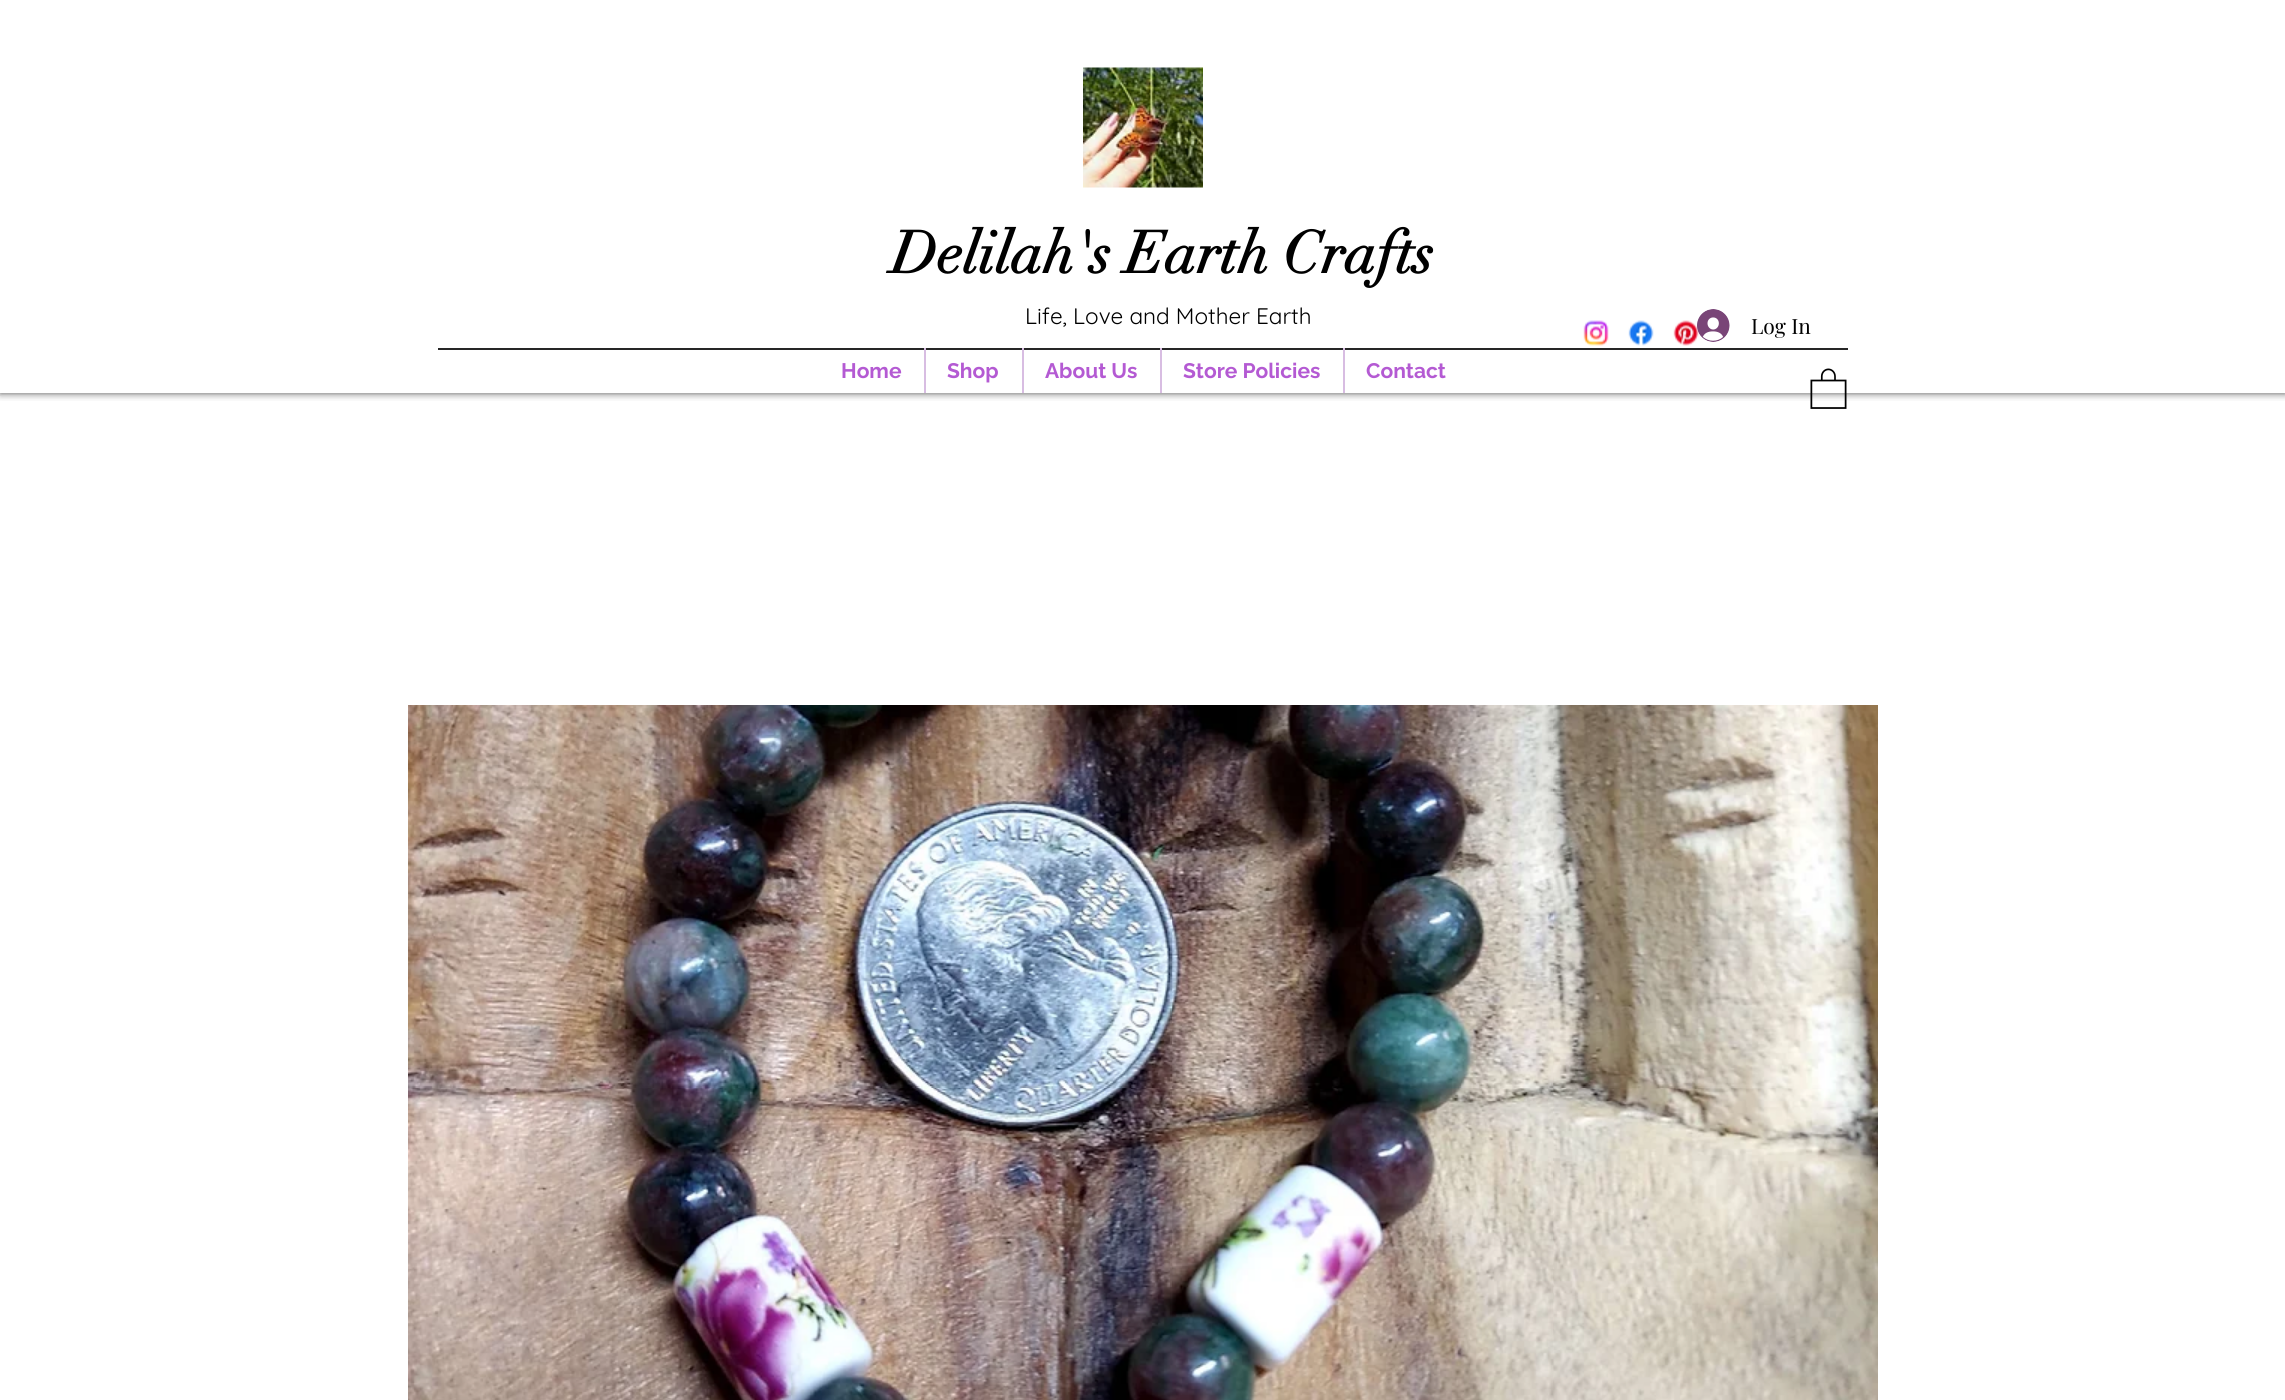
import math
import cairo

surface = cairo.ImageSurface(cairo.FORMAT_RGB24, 2285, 1400)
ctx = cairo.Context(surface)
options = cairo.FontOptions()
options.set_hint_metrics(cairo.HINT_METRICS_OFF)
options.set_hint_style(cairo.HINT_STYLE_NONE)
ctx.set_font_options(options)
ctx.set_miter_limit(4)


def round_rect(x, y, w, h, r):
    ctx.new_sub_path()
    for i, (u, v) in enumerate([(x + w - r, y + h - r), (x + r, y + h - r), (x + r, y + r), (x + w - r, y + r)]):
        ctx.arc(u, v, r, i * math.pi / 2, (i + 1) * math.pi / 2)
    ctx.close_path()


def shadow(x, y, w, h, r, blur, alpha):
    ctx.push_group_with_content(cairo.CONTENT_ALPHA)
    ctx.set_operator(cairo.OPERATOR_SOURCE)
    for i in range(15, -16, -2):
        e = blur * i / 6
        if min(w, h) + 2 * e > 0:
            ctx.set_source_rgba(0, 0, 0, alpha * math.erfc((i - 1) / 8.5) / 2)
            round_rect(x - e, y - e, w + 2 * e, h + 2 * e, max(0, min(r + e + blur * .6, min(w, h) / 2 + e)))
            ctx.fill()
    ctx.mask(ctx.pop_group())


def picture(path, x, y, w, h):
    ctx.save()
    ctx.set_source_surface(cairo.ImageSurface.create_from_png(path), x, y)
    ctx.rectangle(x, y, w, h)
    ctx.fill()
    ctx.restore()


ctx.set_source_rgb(1, 1, 1)
ctx.paint()
ctx.save()
ctx.rectangle(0, 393, 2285, 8)
ctx.clip()
ctx.set_source_rgb(0, 0, 0)
shadow(0, 0, 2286, 393, 0, 4, 0.7)
ctx.restore()
picture("img1.png", 1083, 67, 120, 121)
ctx.select_font_face("didot", cairo.FONT_SLANT_NORMAL, cairo.FONT_WEIGHT_BOLD)
ctx.set_font_size(58.5)
ctx.set_source_rgb(0, 0, 0)
ctx.move_to(891, 273)
ctx.show_text("Delilah's Earth Crafts")
ctx.select_font_face("Quicksand")
ctx.set_font_size(22.5)
ctx.move_to(1025, 324)
ctx.show_text("Life, Love and Mother Earth")
picture("img2.png", 1583, 320, 26, 26)
picture("img3.png", 1628, 320, 26, 26)
picture("img4.png", 1673, 320, 26, 26)
picture("img5.png", 1697, 309, 33, 33)
ctx.select_font_face("Playfair Display")
ctx.set_font_size(21)
ctx.move_to(1751, 334)
ctx.show_text("Log In")
ctx.set_source_rgb(0.149, 0.149, 0.149)
ctx.rectangle(438, 348, 1410, 2)
ctx.fill()
ctx.select_font_face("Raleway", cairo.FONT_SLANT_NORMAL, cairo.FONT_WEIGHT_BOLD)
ctx.set_source_rgb(0.706, 0.353, 0.827)
ctx.move_to(841, 378)
ctx.show_text("Home")
ctx.set_source_rgb(0.847, 0.741, 0.886)
ctx.rectangle(924, 348, 2, 45)
ctx.fill()
ctx.set_source_rgb(0.706, 0.353, 0.827)
ctx.move_to(947, 378)
ctx.show_text("Shop")
ctx.set_source_rgb(0.847, 0.741, 0.886)
ctx.rectangle(1022, 348, 2, 45)
ctx.fill()
ctx.set_source_rgb(0.706, 0.353, 0.827)
ctx.move_to(1045, 378)
ctx.show_text("About Us")
ctx.set_source_rgb(0.847, 0.741, 0.886)
ctx.rectangle(1160, 348, 2, 45)
ctx.fill()
ctx.set_source_rgb(0.706, 0.353, 0.827)
ctx.move_to(1183, 378)
ctx.show_text("Store Policies")
ctx.set_source_rgb(0.847, 0.741, 0.886)
ctx.rectangle(1343, 348, 2, 45)
ctx.fill()
ctx.set_source_rgb(0.706, 0.353, 0.827)
ctx.move_to(1366, 378)
ctx.show_text("Contact")
picture("img6.png", 1810, 368, 37, 41)
picture("img7.png", 408, 705, 1470, 695)
surface.write_to_png("page.png")
